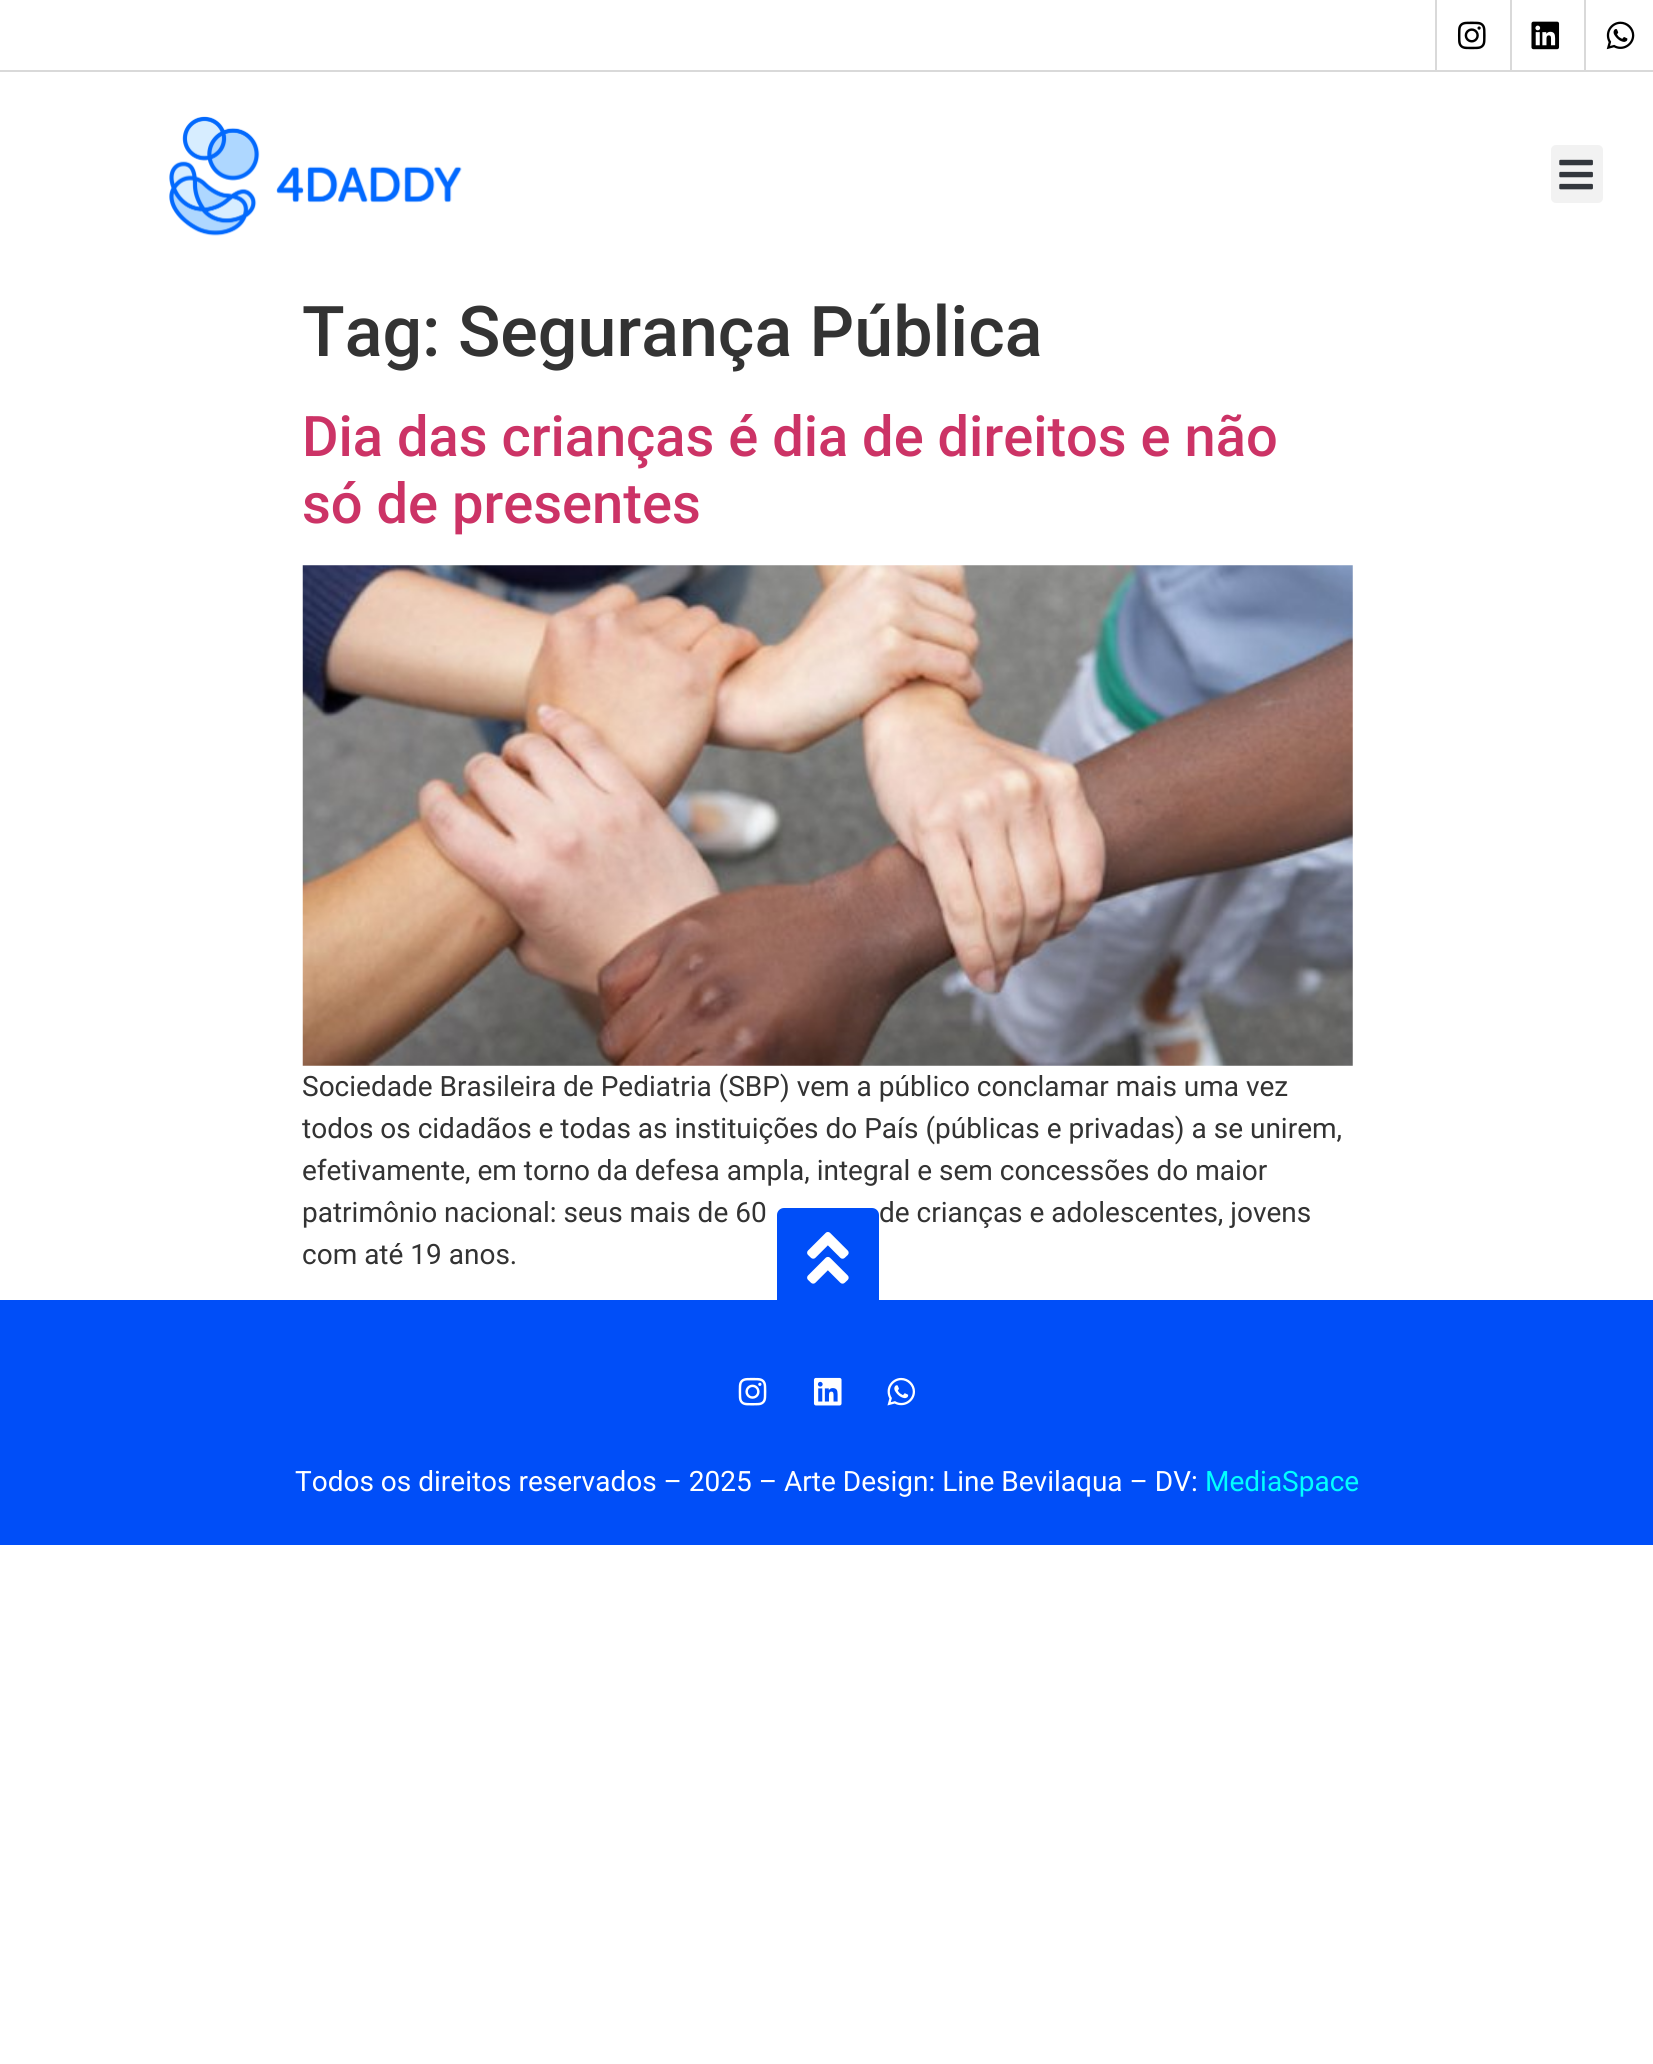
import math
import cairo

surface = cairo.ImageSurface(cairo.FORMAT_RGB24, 1653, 2064)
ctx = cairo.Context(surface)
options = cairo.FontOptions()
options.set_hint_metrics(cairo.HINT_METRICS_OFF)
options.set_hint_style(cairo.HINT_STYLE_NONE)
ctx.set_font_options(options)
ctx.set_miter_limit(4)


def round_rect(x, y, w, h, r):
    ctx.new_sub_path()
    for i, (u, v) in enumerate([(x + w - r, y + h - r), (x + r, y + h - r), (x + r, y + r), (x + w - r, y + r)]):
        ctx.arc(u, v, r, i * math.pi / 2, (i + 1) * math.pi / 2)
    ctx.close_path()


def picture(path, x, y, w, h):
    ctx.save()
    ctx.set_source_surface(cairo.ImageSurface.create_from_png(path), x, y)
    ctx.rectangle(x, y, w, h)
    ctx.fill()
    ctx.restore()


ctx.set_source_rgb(1, 1, 1)
ctx.paint()
ctx.set_source_rgb(0.851, 0.851, 0.851)
ctx.rectangle(0, 70, 1653, 2)
ctx.fill()
ctx.rectangle(1435, 0, 2, 70)
ctx.fill()
picture("img1.png", 1457, 21, 29, 29)
ctx.rectangle(1510, 0, 2, 70)
ctx.fill()
picture("img2.png", 1531, 21, 29, 29)
ctx.rectangle(1584, 0, 2, 70)
ctx.fill()
picture("img3.png", 1606, 21, 29, 29)
picture("img4.png", 169, 116, 293, 120)
ctx.set_source_rgb(0.949, 0.949, 0.949)
round_rect(1551, 145, 52, 58, 5)
ctx.fill()
picture("img5.png", 1559, 159, 34, 31)
ctx.select_font_face("Roboto Medium")
ctx.set_font_size(70)
ctx.set_source_rgb(0.2, 0.2, 0.2)
ctx.move_to(302, 356)
ctx.show_text("Tag: Segurança Pública")
ctx.set_font_size(56)
ctx.set_source_rgb(0.8, 0.2, 0.4)
ctx.move_to(302, 456)
ctx.show_text("Dia das crianças é dia de direitos e não")
ctx.move_to(302, 523)
ctx.show_text("só de presentes")
picture("img6.png", 302, 565, 1051, 501)
ctx.select_font_face("Roboto")
ctx.set_font_size(28)
ctx.set_source_rgb(0.2, 0.2, 0.2)
ctx.move_to(302, 1096)
ctx.show_text("Sociedade Brasileira de Pediatria (SBP) vem a público conclamar mais uma vez")
ctx.move_to(302, 1138)
ctx.show_text("todos os cidadãos e todas as instituições do País (públicas e privadas) a se unirem,")
ctx.move_to(302, 1180)
ctx.show_text("efetivamente, em torno da defesa ampla, integral e sem concessões do maior")
ctx.move_to(302, 1222)
ctx.show_text("patrimônio nacional: seus mais de 60")
ctx.move_to(879, 1222)
ctx.show_text("de crianças e adolescentes, jovens")
ctx.move_to(302, 1264)
ctx.show_text("com até 19 anos.")
ctx.set_source_rgb(0, 0.306, 0.969)
ctx.rectangle(0, 1300, 1653, 245)
ctx.fill()
round_rect(777, 1208, 102, 101, 7)
ctx.fill()
picture("img7.png", 807, 1232, 42, 52)
picture("img8.png", 738, 1377, 29, 29)
picture("img9.png", 813, 1377, 29, 29)
picture("img10.png", 887, 1377, 28, 29)
ctx.set_source_rgb(1, 1, 1)
ctx.move_to(295, 1491)
ctx.show_text("Todos os direitos reservados – 2025 – Arte Design: Line Bevilaqua – DV:")
ctx.set_source_rgb(0, 1, 1)
ctx.move_to(1205, 1491)
ctx.show_text("MediaSpace")
surface.write_to_png("page.png")
